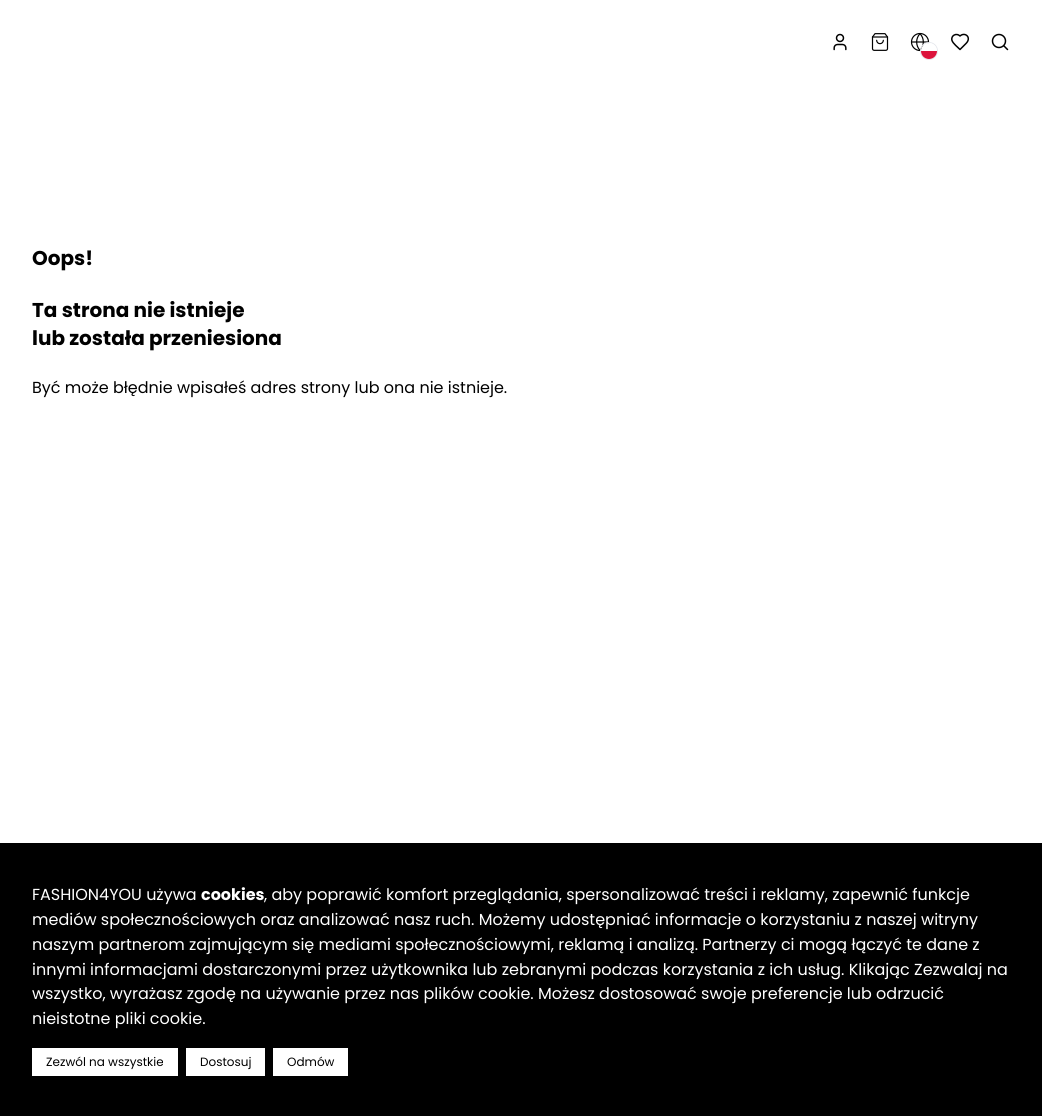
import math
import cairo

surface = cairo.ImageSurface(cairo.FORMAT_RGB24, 1042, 1116)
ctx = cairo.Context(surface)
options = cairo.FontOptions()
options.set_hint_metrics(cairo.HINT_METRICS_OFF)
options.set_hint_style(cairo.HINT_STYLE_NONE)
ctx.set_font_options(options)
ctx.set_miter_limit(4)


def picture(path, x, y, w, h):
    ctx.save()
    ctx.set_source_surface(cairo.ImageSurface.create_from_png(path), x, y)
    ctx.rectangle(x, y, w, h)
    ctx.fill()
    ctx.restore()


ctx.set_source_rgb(1, 1, 1)
ctx.paint()
picture("img1.png", 833, 33, 14, 18)
picture("img2.png", 871, 33, 18, 18)
picture("img3.png", 910, 32, 20, 20)
ctx.arc(929, 51, 8.5, 0, 2 * math.pi)
ctx.set_source_rgb(0.898, 0.906, 0.922)
ctx.set_line_width(1)
ctx.stroke()
ctx.set_source_rgb(1, 1, 1)
ctx.arc(929, 51, 8, 0, 2 * math.pi)
ctx.fill()
ctx.set_source_rgb(0.863, 0.078, 0.235)
ctx.new_path()
ctx.move_to(921, 51)
ctx.line_to(937, 51)
ctx.curve_to(937, 55.5, 933.5, 59, 929, 59)
ctx.curve_to(924.5, 59, 921, 55.5, 921, 51)
ctx.close_path()
ctx.fill()
ctx.new_path()
ctx.move_to(966, 43.5)
ctx.curve_to(972, 37.5, 965, 31.5, 960, 36)
ctx.curve_to(956.5, 32.5, 950.5, 35.5, 952, 40.5)
ctx.curve_to(953, 43.5, 958, 47.5, 960, 49.5)
ctx.close_path()
ctx.set_source_rgb(0, 0, 0)
ctx.set_line_width(1.5)
ctx.set_line_cap(cairo.LINE_CAP_ROUND)
ctx.set_line_join(cairo.LINE_JOIN_ROUND)
ctx.stroke()
ctx.arc(999, 41, 6.5, 0, 2 * math.pi)
ctx.set_line_cap(cairo.LINE_CAP_BUTT)
ctx.set_line_join(cairo.LINE_JOIN_MITER)
ctx.stroke()
ctx.new_path()
ctx.move_to(1007.5, 49.5)
ctx.line_to(1004, 46)
ctx.set_line_cap(cairo.LINE_CAP_ROUND)
ctx.set_line_join(cairo.LINE_JOIN_ROUND)
ctx.stroke()
ctx.select_font_face("Poppins", cairo.FONT_SLANT_NORMAL, cairo.FONT_WEIGHT_BOLD)
ctx.set_font_size(20)
ctx.move_to(32, 265)
ctx.show_text("Oops!")
ctx.move_to(32, 317)
ctx.show_text("Ta strona nie istnieje")
ctx.move_to(32, 345)
ctx.show_text("lub została przeniesiona")
ctx.select_font_face("Poppins")
ctx.set_font_size(16)
ctx.move_to(32, 393)
ctx.show_text("Być może błędnie wpisałeś adres strony lub ona nie istnieje.")
ctx.rectangle(0, 843, 1042, 273)
ctx.fill()
ctx.set_source_rgb(1, 1, 1)
ctx.move_to(32, 900)
ctx.show_text("FASHION4YOU używa")
ctx.select_font_face("Poppins", cairo.FONT_SLANT_NORMAL, cairo.FONT_WEIGHT_BOLD)
ctx.move_to(201, 900)
ctx.show_text("cookies")
ctx.select_font_face("Poppins")
ctx.move_to(264, 900)
ctx.show_text(", aby poprawić komfort przeglądania, spersonalizować treści i reklamy, zapewnić funkcje")
ctx.move_to(32, 925)
ctx.show_text("mediów społecznościowych oraz analizować nasz ruch. Możemy udostępniać informacje o korzystaniu z naszej witryny")
ctx.move_to(32, 950)
ctx.show_text("naszym partnerom zajmującym się mediami społecznościowymi, reklamą i analizą. Partnerzy ci mogą łączyć te dane z")
ctx.move_to(32, 975)
ctx.show_text("innymi informacjami dostarczonymi przez użytkownika lub zebranymi podczas korzystania z ich usług. Klikając Zezwalaj na")
ctx.move_to(32, 999)
ctx.show_text("wszystko, wyrażasz zgodę na używanie przez nas plików cookie. Możesz dostosować swoje preferencje lub odrzucić")
ctx.move_to(32, 1024)
ctx.show_text("nieistotne pliki cookie.")
ctx.rectangle(32, 1048, 146, 28)
ctx.fill()
ctx.set_font_size(12)
ctx.set_source_rgb(0, 0, 0)
ctx.move_to(46, 1066)
ctx.show_text("Zezwól na wszystkie")
ctx.set_source_rgb(1, 1, 1)
ctx.rectangle(186, 1048, 79, 28)
ctx.fill()
ctx.set_source_rgb(0, 0, 0)
ctx.move_to(200, 1066)
ctx.show_text("Dostosuj")
ctx.set_source_rgb(1, 1, 1)
ctx.rectangle(273, 1048, 75, 28)
ctx.fill()
ctx.set_source_rgb(0, 0, 0)
ctx.move_to(287, 1066)
ctx.show_text("Odmów")
surface.write_to_png("page.png")
